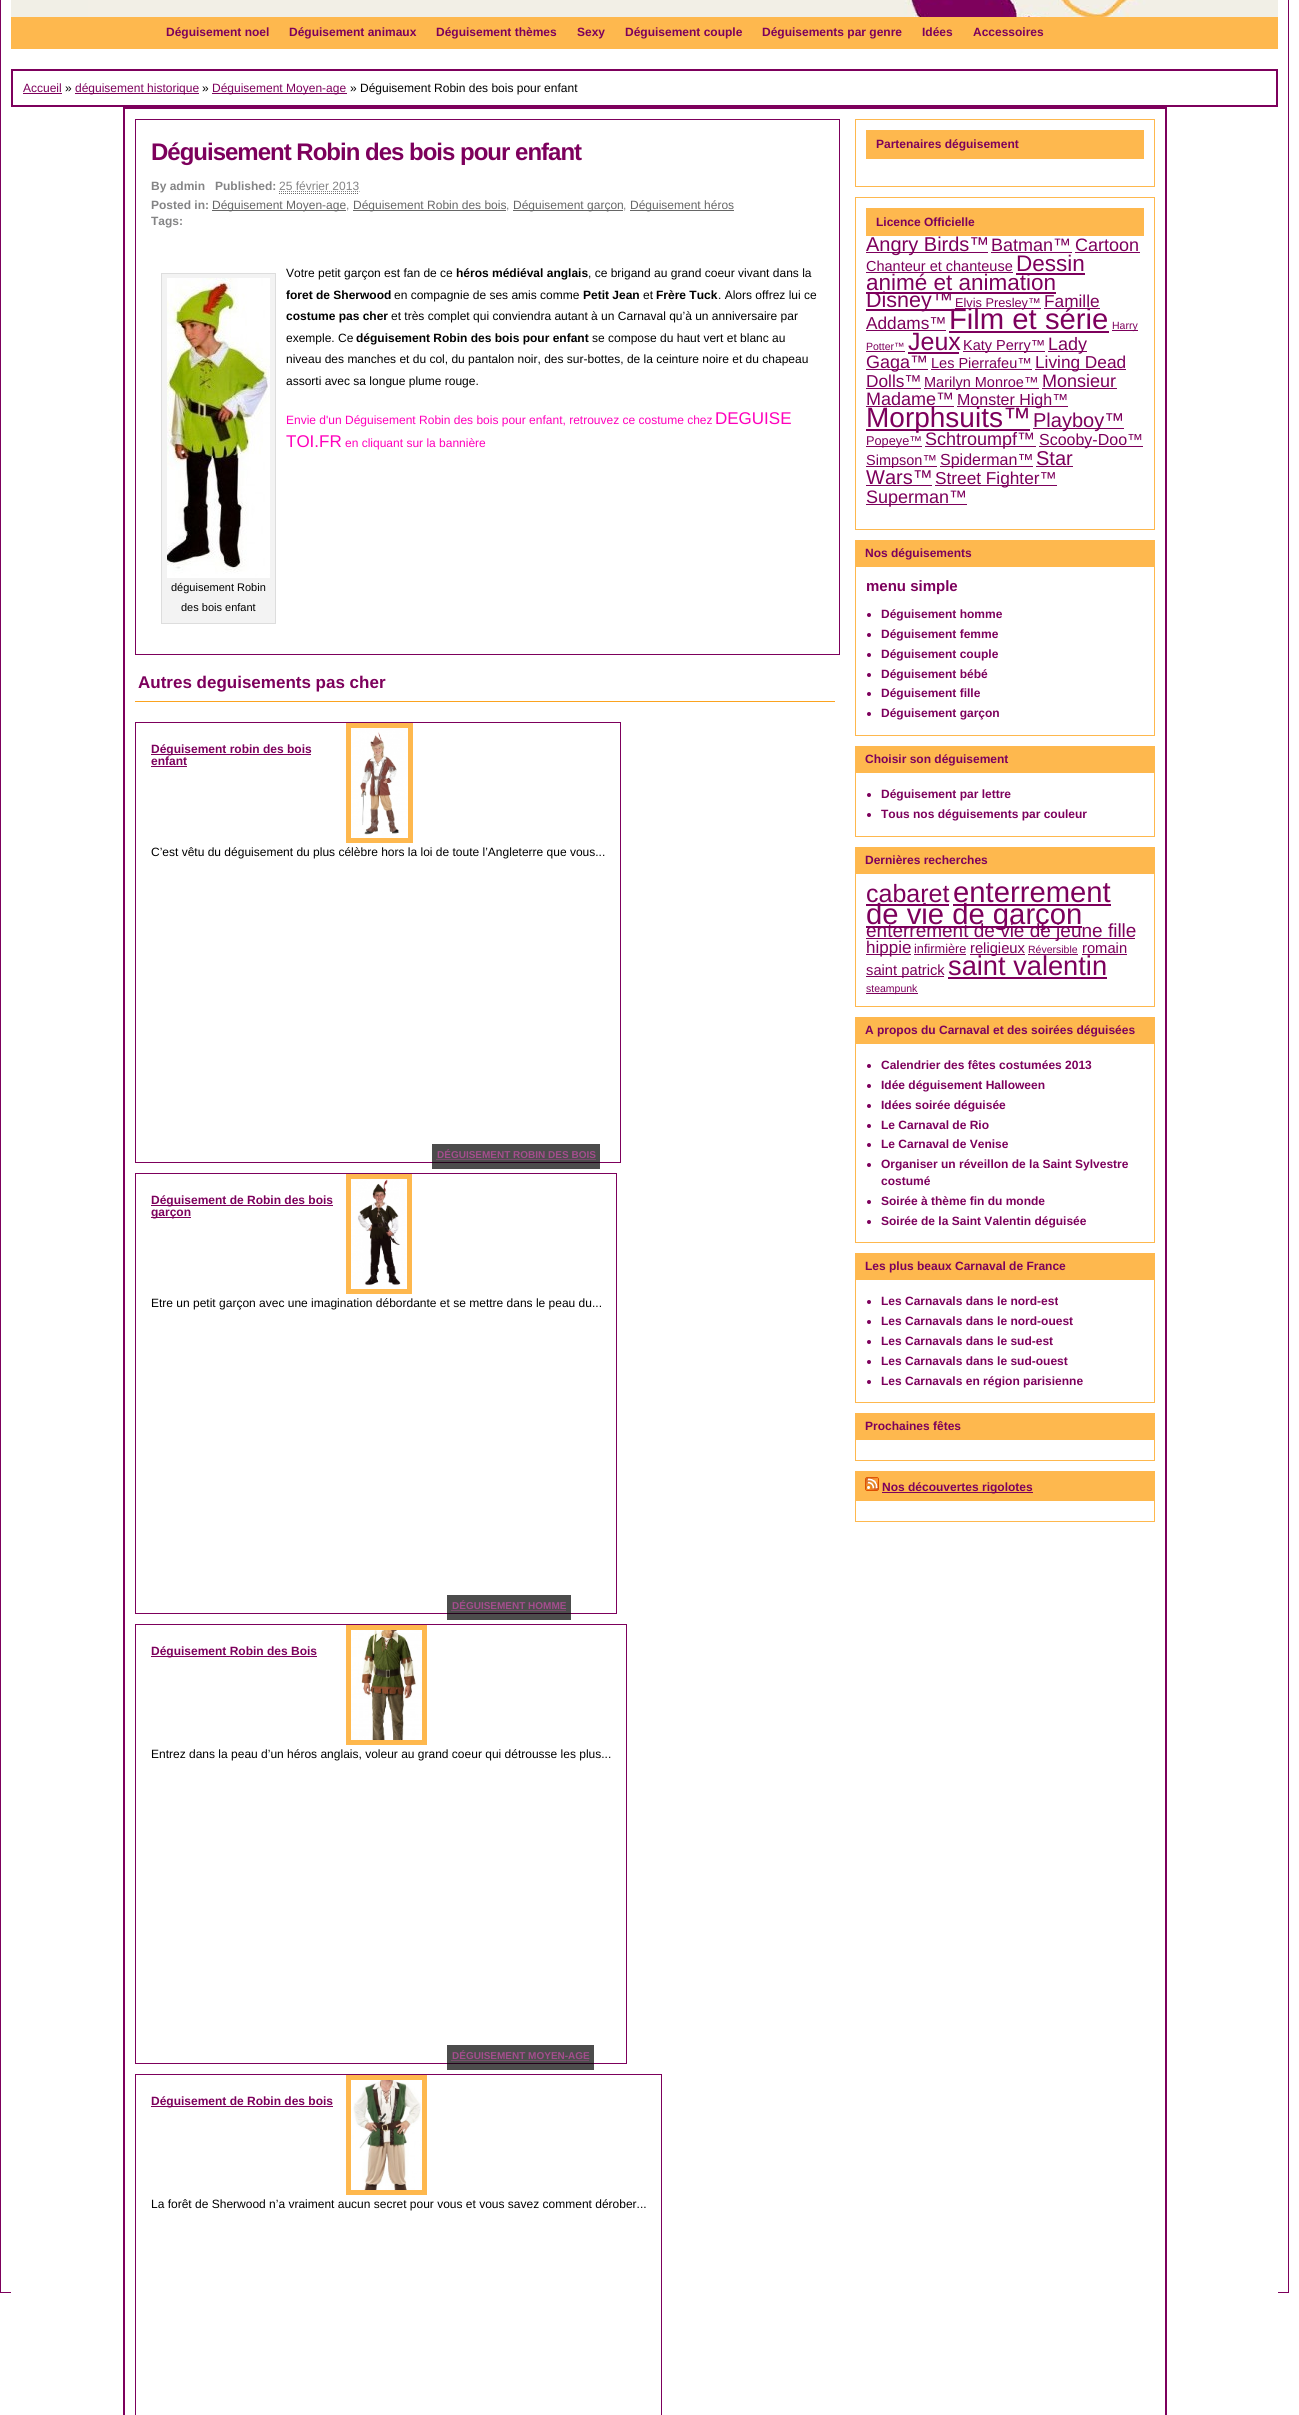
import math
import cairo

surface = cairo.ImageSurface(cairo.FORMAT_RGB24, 1299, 2415)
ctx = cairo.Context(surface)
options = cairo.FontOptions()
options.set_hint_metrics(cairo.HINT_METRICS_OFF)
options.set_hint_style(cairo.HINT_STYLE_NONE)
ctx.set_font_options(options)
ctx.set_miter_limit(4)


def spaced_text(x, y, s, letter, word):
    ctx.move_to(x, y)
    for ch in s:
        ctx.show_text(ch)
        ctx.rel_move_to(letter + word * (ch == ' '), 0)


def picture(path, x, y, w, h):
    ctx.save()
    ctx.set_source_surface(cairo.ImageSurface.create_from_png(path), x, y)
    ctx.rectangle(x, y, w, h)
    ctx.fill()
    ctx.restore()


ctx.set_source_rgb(1, 1, 1)
ctx.paint()
ctx.rectangle(0.5, -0.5, 1288, 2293)
ctx.set_source_rgb(0.49, 0, 0.361)
ctx.set_line_width(1)
ctx.stroke()
ctx.set_source_rgb(0.945, 0.937, 0.902)
ctx.rectangle(11, 0, 1267, 17)
ctx.fill()
picture("img1.png", 88, 0, 1092, 17)
ctx.set_source_rgb(0.996, 0.722, 0.306)
ctx.rectangle(11, 17, 1267, 32)
ctx.fill()
ctx.select_font_face("Liberation Sans", cairo.FONT_SLANT_NORMAL, cairo.FONT_WEIGHT_BOLD)
ctx.set_font_size(12)
ctx.set_source_rgb(0.49, 0, 0.361)
ctx.move_to(166, 36)
ctx.show_text("Déguisement noel")
ctx.move_to(289, 36)
ctx.show_text("Déguisement animaux")
ctx.move_to(436, 36)
ctx.show_text("Déguisement thèmes")
ctx.move_to(577, 36)
ctx.show_text("Sexy")
ctx.move_to(625, 36)
ctx.show_text("Déguisement couple")
ctx.move_to(762, 36)
ctx.show_text("Déguisements par genre")
ctx.move_to(922, 36)
ctx.show_text("Idées")
ctx.move_to(973, 36)
ctx.show_text("Accessoires")
ctx.set_source_rgb(1, 1, 1)
ctx.rectangle(11, 2292, 1267, 1)
ctx.fill()
ctx.rectangle(12, 70, 1265, 36)
ctx.set_source_rgb(0.49, 0, 0.361)
ctx.set_line_width(2)
ctx.stroke()
ctx.select_font_face("Liberation Sans")
ctx.move_to(23, 92)
ctx.show_text("Accueil")
ctx.rectangle(23, 93, 39, 1)
ctx.fill()
ctx.set_source_rgb(0, 0, 0)
ctx.move_to(65, 92)
ctx.show_text("»")
ctx.set_source_rgb(0.49, 0, 0.361)
ctx.rectangle(75, 93, 124, 1)
ctx.fill()
ctx.move_to(75, 92)
ctx.show_text("déguisement historique")
ctx.set_source_rgb(0, 0, 0)
ctx.move_to(202, 92)
ctx.show_text("»")
ctx.set_source_rgb(0.49, 0, 0.361)
ctx.rectangle(212, 93, 135, 1)
ctx.fill()
ctx.move_to(212, 92)
ctx.show_text("Déguisement Moyen-age")
ctx.set_source_rgb(0, 0, 0)
ctx.move_to(350, 92)
ctx.show_text("» Déguisement Robin des bois pour enfant")
ctx.rectangle(124, 108, 1042, 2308)
ctx.set_source_rgb(0.49, 0, 0.361)
ctx.stroke()
ctx.rectangle(135.5, 119.5, 704, 535)
ctx.set_line_width(1)
ctx.stroke()
ctx.select_font_face("Liberation Sans", cairo.FONT_SLANT_NORMAL, cairo.FONT_WEIGHT_BOLD)
ctx.set_font_size(24)
spaced_text(151, 160, "Déguisement Robin des bois pour enfant", -1, 0)
ctx.set_font_size(12)
ctx.set_source_rgb(0.518, 0.518, 0.522)
ctx.move_to(151, 190)
ctx.show_text("By admin")
ctx.move_to(215, 190)
ctx.show_text("Published:")
ctx.select_font_face("Liberation Sans")
ctx.move_to(279, 190)
ctx.show_text("25 février 2013")
ctx.new_path()
ctx.move_to(279, 193.5)
ctx.line_to(359, 193.5)
ctx.set_source_rgb(0.4, 0.4, 0.4)
ctx.set_dash([1, 1])
ctx.stroke()
ctx.new_path()
ctx.move_to(279, 191.5)
ctx.line_to(359.5, 191.5)
ctx.set_source_rgb(0.518, 0.518, 0.522)
ctx.stroke()
ctx.select_font_face("Liberation Sans", cairo.FONT_SLANT_NORMAL, cairo.FONT_WEIGHT_BOLD)
ctx.move_to(151, 209)
ctx.show_text("Posted in:")
ctx.set_source_rgb(0.4, 0.4, 0.4)
ctx.rectangle(212, 210, 134, 1)
ctx.fill()
ctx.select_font_face("Liberation Sans")
ctx.move_to(212, 209)
ctx.show_text("Déguisement Moyen-age")
ctx.set_source_rgb(0.518, 0.518, 0.522)
ctx.move_to(346, 209)
ctx.show_text(",")
ctx.set_source_rgb(0.4, 0.4, 0.4)
ctx.rectangle(353, 210, 153, 1)
ctx.fill()
ctx.move_to(353, 209)
ctx.show_text("Déguisement Robin des bois")
ctx.set_source_rgb(0.518, 0.518, 0.522)
ctx.move_to(506, 209)
ctx.show_text(",")
ctx.set_source_rgb(0.4, 0.4, 0.4)
ctx.rectangle(513, 210, 110, 1)
ctx.fill()
ctx.move_to(513, 209)
ctx.show_text("Déguisement garçon")
ctx.set_source_rgb(0.518, 0.518, 0.522)
ctx.move_to(623, 209)
ctx.show_text(",")
ctx.set_source_rgb(0.4, 0.4, 0.4)
ctx.rectangle(630, 210, 104, 1)
ctx.fill()
ctx.move_to(630, 209)
ctx.show_text("Déguisement héros")
ctx.select_font_face("Liberation Sans", cairo.FONT_SLANT_NORMAL, cairo.FONT_WEIGHT_BOLD)
ctx.set_source_rgb(0.518, 0.518, 0.522)
ctx.move_to(151, 225)
ctx.show_text("Tags:")
ctx.select_font_face("Liberation Sans")
ctx.set_source_rgb(0, 0, 0)
ctx.move_to(286, 277)
ctx.show_text("Votre petit garçon est fan de ce")
ctx.select_font_face("Liberation Sans", cairo.FONT_SLANT_NORMAL, cairo.FONT_WEIGHT_BOLD)
ctx.move_to(456, 277)
ctx.show_text("héros médiéval anglais")
ctx.select_font_face("Liberation Sans")
ctx.move_to(588, 277)
ctx.show_text(", ce brigand au grand coeur vivant dans la")
ctx.select_font_face("Liberation Sans", cairo.FONT_SLANT_NORMAL, cairo.FONT_WEIGHT_BOLD)
ctx.move_to(286, 299)
ctx.show_text("foret de Sherwood")
ctx.select_font_face("Liberation Sans")
ctx.move_to(394, 299)
ctx.show_text("en compagnie de ses amis comme")
ctx.select_font_face("Liberation Sans", cairo.FONT_SLANT_NORMAL, cairo.FONT_WEIGHT_BOLD)
ctx.move_to(583, 299)
ctx.show_text("Petit Jean")
ctx.select_font_face("Liberation Sans")
ctx.move_to(643, 299)
ctx.show_text("et")
ctx.select_font_face("Liberation Sans", cairo.FONT_SLANT_NORMAL, cairo.FONT_WEIGHT_BOLD)
ctx.move_to(656, 299)
ctx.show_text("Frère Tuck")
ctx.select_font_face("Liberation Sans")
ctx.move_to(718, 299)
ctx.show_text(". Alors offrez lui ce")
ctx.select_font_face("Liberation Sans", cairo.FONT_SLANT_NORMAL, cairo.FONT_WEIGHT_BOLD)
ctx.move_to(286, 320)
ctx.show_text("costume pas cher")
ctx.select_font_face("Liberation Sans")
ctx.move_to(391, 320)
ctx.show_text("et très complet qui conviendra autant à un Carnaval qu’à un anniversaire par")
ctx.move_to(286, 342)
ctx.show_text("exemple. Ce")
ctx.select_font_face("Liberation Sans", cairo.FONT_SLANT_NORMAL, cairo.FONT_WEIGHT_BOLD)
ctx.move_to(356, 342)
ctx.show_text("déguisement Robin des bois pour enfant")
ctx.select_font_face("Liberation Sans")
ctx.move_to(592, 342)
ctx.show_text("se compose du haut vert et blanc au")
ctx.move_to(286, 363)
ctx.show_text("niveau des manches et du col, du pantalon noir, des sur-bottes, de la ceinture noire et du chapeau")
ctx.move_to(286, 385)
ctx.show_text("assorti avec sa longue plume rouge.")
ctx.set_source_rgb(1, 0, 0.733)
ctx.move_to(286, 424)
ctx.show_text("Envie d'un Déguisement Robin des bois pour enfant, retrouvez ce costume chez")
ctx.set_font_size(17)
ctx.move_to(715, 424)
ctx.show_text("DEGUISE")
ctx.move_to(286, 447)
ctx.show_text("TOI.FR")
ctx.set_font_size(12)
ctx.move_to(345, 447)
ctx.show_text("en cliquant sur la bannière")
ctx.set_source_rgb(0.953, 0.953, 0.953)
ctx.rectangle(161.5, 273.5, 114, 350)
ctx.fill_preserve()
ctx.set_source_rgb(0.867, 0.867, 0.867)
ctx.set_dash([])
ctx.stroke()
picture("img2.png", 167, 278, 103, 300)
ctx.set_font_size(11)
ctx.set_source_rgb(0, 0, 0)
ctx.move_to(171, 591)
ctx.show_text("déguisement Robin")
ctx.move_to(181, 611)
ctx.show_text("des bois enfant")
ctx.set_source_rgb(0.984, 0.639, 0.122)
ctx.rectangle(135, 701, 700, 1)
ctx.fill()
ctx.select_font_face("Liberation Sans", cairo.FONT_SLANT_NORMAL, cairo.FONT_WEIGHT_BOLD)
ctx.set_font_size(17)
ctx.set_source_rgb(0.49, 0, 0.361)
ctx.move_to(138, 688)
ctx.show_text("Autres deguisements pas cher")
ctx.rectangle(135.5, 722.5, 485, 440)
ctx.stroke()
ctx.rectangle(151, 754, 160, 1)
ctx.fill()
ctx.set_font_size(12)
ctx.move_to(151, 753)
ctx.show_text("Déguisement robin des bois")
ctx.move_to(151, 765)
ctx.show_text("enfant")
ctx.rectangle(151, 766, 36, 1)
ctx.fill()
ctx.rectangle(348.5, 725.5, 62, 115)
ctx.set_source_rgb(0.996, 0.722, 0.306)
ctx.set_line_width(5)
ctx.stroke()
picture("img3.png", 351, 728, 57, 110)
ctx.select_font_face("Liberation Sans")
ctx.set_source_rgb(0, 0, 0)
ctx.move_to(151, 856)
ctx.show_text("C’est vêtu du déguisement du plus célèbre hors la loi de toute l’Angleterre que vous...")
ctx.rectangle(135.5, 1173.5, 481, 440)
ctx.set_source_rgb(0.49, 0, 0.361)
ctx.set_line_width(1)
ctx.stroke()
ctx.set_source_rgba(0, 0, 0, 0.7)
ctx.rectangle(432, 1144, 168, 25)
ctx.fill()
ctx.select_font_face("Liberation Sans", cairo.FONT_SLANT_NORMAL, cairo.FONT_WEIGHT_BOLD)
ctx.set_font_size(10)
ctx.set_source_rgb(0.643, 0.302, 0.553)
ctx.move_to(437, 1158)
ctx.show_text("DÉGUISEMENT ROBIN DES BOIS")
ctx.new_path()
ctx.move_to(436.5, 1159.5)
ctx.line_to(595.5, 1159.5)
ctx.set_dash([1, 1])
ctx.stroke()
ctx.rectangle(348.5, 1176.5, 61, 115)
ctx.set_source_rgb(0.996, 0.722, 0.306)
ctx.set_line_width(5)
ctx.set_dash([])
ctx.stroke()
picture("img4.png", 351, 1179, 56, 110)
ctx.set_source_rgb(0.49, 0, 0.361)
ctx.rectangle(151, 1205, 182, 1)
ctx.fill()
ctx.set_font_size(12)
ctx.move_to(151, 1204)
ctx.show_text("Déguisement de Robin des bois")
ctx.rectangle(151, 1217, 40, 1)
ctx.fill()
ctx.move_to(151, 1216)
ctx.show_text("garçon")
ctx.select_font_face("Liberation Sans")
ctx.set_source_rgb(0, 0, 0)
ctx.move_to(151, 1307)
ctx.show_text("Etre un petit garçon avec une imagination débordante et se mettre dans le peau du...")
ctx.rectangle(135.5, 1624.5, 491, 439)
ctx.set_source_rgb(0.49, 0, 0.361)
ctx.set_line_width(1)
ctx.stroke()
ctx.set_source_rgba(0, 0, 0, 0.7)
ctx.rectangle(447, 1595, 124, 25)
ctx.fill()
ctx.select_font_face("Liberation Sans", cairo.FONT_SLANT_NORMAL, cairo.FONT_WEIGHT_BOLD)
ctx.set_font_size(10)
ctx.set_source_rgb(0.643, 0.302, 0.553)
ctx.move_to(452, 1609)
ctx.show_text("DÉGUISEMENT HOMME")
ctx.new_path()
ctx.move_to(451.5, 1610.5)
ctx.line_to(566, 1610.5)
ctx.set_dash([1, 1])
ctx.stroke()
ctx.rectangle(348.5, 1627.5, 76, 115)
ctx.set_source_rgb(0.996, 0.722, 0.306)
ctx.set_line_width(5)
ctx.set_dash([])
ctx.stroke()
picture("img5.png", 351, 1630, 71, 110)
ctx.set_source_rgb(0.49, 0, 0.361)
ctx.rectangle(151, 1656, 166, 1)
ctx.fill()
ctx.set_font_size(12)
ctx.move_to(151, 1655)
ctx.show_text("Déguisement Robin des Bois")
ctx.select_font_face("Liberation Sans")
ctx.set_source_rgb(0, 0, 0)
ctx.move_to(151, 1758)
ctx.show_text("Entrez dans la peau d’un héros anglais, voleur au grand coeur qui détrousse les plus...")
ctx.rectangle(135.5, 2074.5, 526, 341)
ctx.set_source_rgb(0.49, 0, 0.361)
ctx.set_line_width(1)
ctx.stroke()
ctx.set_source_rgba(0, 0, 0, 0.7)
ctx.rectangle(447, 2045, 147, 25)
ctx.fill()
ctx.select_font_face("Liberation Sans", cairo.FONT_SLANT_NORMAL, cairo.FONT_WEIGHT_BOLD)
ctx.set_font_size(10)
ctx.set_source_rgb(0.643, 0.302, 0.553)
ctx.move_to(452, 2059)
ctx.show_text("DÉGUISEMENT MOYEN-AGE")
ctx.new_path()
ctx.move_to(451.5, 2060.5)
ctx.line_to(589.5, 2060.5)
ctx.set_dash([1, 1])
ctx.stroke()
ctx.rectangle(348.5, 2077.5, 76, 115)
ctx.set_source_rgb(0.996, 0.722, 0.306)
ctx.set_line_width(5)
ctx.set_dash([])
ctx.stroke()
picture("img6.png", 351, 2080, 71, 110)
ctx.set_source_rgb(0.49, 0, 0.361)
ctx.rectangle(151, 2106, 182, 1)
ctx.fill()
ctx.set_font_size(12)
ctx.move_to(151, 2105)
ctx.show_text("Déguisement de Robin des bois")
ctx.select_font_face("Liberation Sans")
ctx.set_source_rgb(0, 0, 0)
ctx.move_to(151, 2208)
ctx.show_text("La forêt de Sherwood n’a vraiment aucun secret pour vous et vous savez comment dérober...")
ctx.rectangle(855.5, 119.5, 299, 67)
ctx.set_source_rgb(0.996, 0.722, 0.306)
ctx.set_line_width(1)
ctx.stroke()
ctx.rectangle(866, 130, 278, 29)
ctx.fill()
ctx.select_font_face("Liberation Sans", cairo.FONT_SLANT_NORMAL, cairo.FONT_WEIGHT_BOLD)
ctx.set_source_rgb(0.49, 0, 0.361)
ctx.move_to(876, 148)
ctx.show_text("Partenaires déguisement")
ctx.rectangle(855.5, 197.5, 299, 332)
ctx.set_source_rgb(0.996, 0.722, 0.306)
ctx.stroke()
ctx.rectangle(866, 208, 278, 28)
ctx.fill()
ctx.set_source_rgb(0.49, 0, 0.361)
ctx.move_to(876, 226)
ctx.show_text("Licence Officielle")
ctx.rectangle(866, 252, 122, 1)
ctx.fill()
ctx.select_font_face("Liberation Sans")
ctx.set_font_size(20)
ctx.move_to(866, 251)
ctx.show_text("Angry Birds™")
ctx.set_font_size(18)
ctx.move_to(991, 251)
ctx.show_text("Batman™")
ctx.rectangle(991, 252, 81, 1)
ctx.fill()
ctx.move_to(1075, 251)
ctx.show_text("Cartoon")
ctx.rectangle(1075, 252, 65, 1)
ctx.fill()
ctx.set_font_size(14.5)
ctx.move_to(866, 271)
ctx.show_text("Chanteur et chanteuse")
ctx.rectangle(866, 272, 147, 1)
ctx.fill()
ctx.set_font_size(22.5)
ctx.move_to(1016, 271)
ctx.show_text("Dessin")
ctx.rectangle(1016, 273, 69, 2)
ctx.fill()
ctx.move_to(866, 290)
ctx.show_text("animé et animation")
ctx.rectangle(866, 292, 190, 2)
ctx.fill()
ctx.rectangle(866, 309, 86, 2)
ctx.fill()
ctx.set_font_size(21.5)
ctx.move_to(866, 307)
ctx.show_text("Disney™")
ctx.rectangle(955, 308, 86, 1)
ctx.fill()
ctx.set_font_size(12.75)
ctx.move_to(955, 307)
ctx.show_text("Elvis Presley™")
ctx.set_font_size(17.25)
ctx.move_to(1044, 307)
ctx.show_text("Famille")
ctx.rectangle(1044, 308, 56, 1)
ctx.fill()
ctx.move_to(866, 329)
ctx.show_text("Addams™")
ctx.rectangle(866, 330, 80, 1)
ctx.fill()
ctx.set_font_size(29.25)
ctx.move_to(949, 329)
ctx.show_text("Film et série")
ctx.rectangle(949, 331, 160, 2)
ctx.fill()
ctx.rectangle(1112, 330, 26, 1)
ctx.fill()
ctx.set_font_size(10.5)
ctx.move_to(1112, 329)
ctx.show_text("Harry")
ctx.move_to(866, 350)
ctx.show_text("Potter™")
ctx.rectangle(866, 351, 39, 1)
ctx.fill()
ctx.set_font_size(25)
ctx.move_to(908, 350)
ctx.show_text("Jeux")
ctx.rectangle(908, 352, 51, 2)
ctx.fill()
ctx.rectangle(963, 351, 82, 1)
ctx.fill()
ctx.set_font_size(14.5)
ctx.move_to(963, 350)
ctx.show_text("Katy Perry™")
ctx.rectangle(1048, 351, 39, 1)
ctx.fill()
ctx.set_font_size(18)
ctx.move_to(1048, 350)
ctx.show_text("Lady")
ctx.rectangle(866, 369, 62, 1)
ctx.fill()
ctx.move_to(866, 368)
ctx.show_text("Gaga™")
ctx.set_font_size(14.5)
ctx.move_to(931, 368)
ctx.show_text("Les Pierrafeu™")
ctx.rectangle(931, 369, 101, 1)
ctx.fill()
ctx.rectangle(1035, 369, 91, 1)
ctx.fill()
ctx.set_font_size(17.25)
ctx.move_to(1035, 368)
ctx.show_text("Living Dead")
ctx.move_to(866, 387)
ctx.show_text("Dolls™")
ctx.rectangle(866, 388, 55, 1)
ctx.fill()
ctx.rectangle(924, 388, 115, 1)
ctx.fill()
ctx.set_font_size(14.5)
ctx.move_to(924, 387)
ctx.show_text("Marilyn Monroe™")
ctx.set_font_size(18)
ctx.move_to(1042, 387)
ctx.show_text("Monsieur")
ctx.rectangle(1042, 388, 75, 1)
ctx.fill()
ctx.move_to(866, 405)
ctx.show_text("Madame™")
ctx.rectangle(866, 406, 88, 1)
ctx.fill()
ctx.rectangle(957, 406, 111, 1)
ctx.fill()
ctx.set_font_size(16)
ctx.move_to(957, 405)
ctx.show_text("Monster High™")
ctx.rectangle(866, 429, 164, 2)
ctx.fill()
ctx.set_font_size(28)
ctx.move_to(866, 427)
ctx.show_text("Morphsuits™")
ctx.rectangle(1033, 428, 91, 1)
ctx.fill()
ctx.set_font_size(20)
ctx.move_to(1033, 427)
ctx.show_text("Playboy™")
ctx.rectangle(866, 446, 56, 1)
ctx.fill()
ctx.set_font_size(12.75)
ctx.move_to(866, 445)
ctx.show_text("Popeye™")
ctx.rectangle(925, 446, 111, 1)
ctx.fill()
ctx.set_font_size(18)
ctx.move_to(925, 445)
ctx.show_text("Schtroumpf™")
ctx.rectangle(1039, 446, 104, 1)
ctx.fill()
ctx.set_font_size(16)
ctx.move_to(1039, 445)
ctx.show_text("Scooby-Doo™")
ctx.rectangle(866, 466, 71, 1)
ctx.fill()
ctx.set_font_size(14.5)
ctx.move_to(866, 465)
ctx.show_text("Simpson™")
ctx.rectangle(940, 466, 93, 1)
ctx.fill()
ctx.set_font_size(16)
ctx.move_to(940, 465)
ctx.show_text("Spiderman™")
ctx.set_font_size(20)
ctx.move_to(1036, 465)
ctx.show_text("Star")
ctx.rectangle(1036, 466, 37, 1)
ctx.fill()
ctx.move_to(866, 484)
ctx.show_text("Wars™")
ctx.rectangle(866, 485, 66, 1)
ctx.fill()
ctx.rectangle(935, 485, 122, 1)
ctx.fill()
ctx.set_font_size(17.25)
ctx.move_to(935, 484)
ctx.show_text("Street Fighter™")
ctx.rectangle(866, 504, 101, 1)
ctx.fill()
ctx.set_font_size(18)
ctx.move_to(866, 503)
ctx.show_text("Superman™")
ctx.set_source_rgb(0.996, 0.722, 0.306)
ctx.rectangle(855, 540, 300, 26)
ctx.fill()
ctx.select_font_face("Liberation Sans", cairo.FONT_SLANT_NORMAL, cairo.FONT_WEIGHT_BOLD)
ctx.set_font_size(12)
ctx.set_source_rgb(0.49, 0, 0.361)
ctx.move_to(865, 557)
ctx.show_text("Nos déguisements")
ctx.rectangle(855.5, 566.5, 299, 169)
ctx.set_source_rgb(0.996, 0.722, 0.306)
ctx.stroke()
ctx.set_font_size(15)
ctx.set_source_rgb(0.49, 0, 0.361)
ctx.move_to(866, 591)
ctx.show_text("menu simple")
ctx.new_path()
ctx.arc(869, 615, 2, 0, 2 * math.pi)
ctx.fill()
ctx.set_font_size(12)
ctx.move_to(881, 618)
ctx.show_text("Déguisement homme")
ctx.new_path()
ctx.arc(869, 635, 2, 0, 2 * math.pi)
ctx.fill()
ctx.move_to(881, 638)
ctx.show_text("Déguisement femme")
ctx.new_path()
ctx.arc(869, 655, 2, 0, 2 * math.pi)
ctx.fill()
ctx.move_to(881, 658)
ctx.show_text("Déguisement couple")
ctx.new_path()
ctx.arc(869, 675, 2, 0, 2 * math.pi)
ctx.fill()
ctx.move_to(881, 678)
ctx.show_text("Déguisement bébé")
ctx.new_path()
ctx.arc(869, 694, 2, 0, 2 * math.pi)
ctx.fill()
ctx.move_to(881, 697)
ctx.show_text("Déguisement fille")
ctx.new_path()
ctx.arc(869, 714, 2, 0, 2 * math.pi)
ctx.fill()
ctx.move_to(881, 717)
ctx.show_text("Déguisement garçon")
ctx.set_source_rgb(0.996, 0.722, 0.306)
ctx.rectangle(855, 746, 300, 26)
ctx.fill()
ctx.set_source_rgb(0.49, 0, 0.361)
ctx.move_to(865, 763)
ctx.show_text("Choisir son déguisement")
ctx.rectangle(855.5, 772.5, 299, 64)
ctx.set_source_rgb(0.996, 0.722, 0.306)
ctx.stroke()
ctx.set_source_rgb(0.49, 0, 0.361)
ctx.arc(869, 795, 2, 0, 2 * math.pi)
ctx.fill()
ctx.move_to(881, 798)
ctx.show_text("Déguisement par lettre")
ctx.new_path()
ctx.arc(869, 815, 2, 0, 2 * math.pi)
ctx.fill()
ctx.move_to(881, 818)
ctx.show_text("Tous nos déguisements par couleur")
ctx.set_source_rgb(0.996, 0.722, 0.306)
ctx.rectangle(855, 847, 300, 26)
ctx.fill()
ctx.set_source_rgb(0.49, 0, 0.361)
ctx.move_to(865, 864)
ctx.show_text("Dernières recherches")
ctx.rectangle(855.5, 873.5, 299, 133)
ctx.set_source_rgb(0.996, 0.722, 0.306)
ctx.stroke()
ctx.select_font_face("Liberation Sans")
ctx.set_font_size(25)
ctx.set_source_rgb(0.49, 0, 0.361)
ctx.move_to(866, 902)
ctx.show_text("cabaret")
ctx.rectangle(866, 904, 83, 2)
ctx.fill()
ctx.set_font_size(29.25)
ctx.move_to(953, 902)
ctx.show_text("enterrement")
ctx.rectangle(953, 904, 158, 2)
ctx.fill()
ctx.rectangle(866, 926, 216, 2)
ctx.fill()
ctx.move_to(866, 924)
ctx.show_text("de vie de garçon")
ctx.rectangle(866, 938, 269, 1)
ctx.fill()
ctx.set_font_size(19)
ctx.move_to(866, 937)
ctx.show_text("enterrement de vie de jeune fille")
ctx.rectangle(866, 954, 45, 1)
ctx.fill()
ctx.set_font_size(17)
ctx.move_to(866, 953)
ctx.show_text("hippie")
ctx.set_font_size(12.75)
ctx.move_to(914, 953)
ctx.show_text("infirmière")
ctx.rectangle(914, 954, 52, 1)
ctx.fill()
ctx.rectangle(970, 954, 55, 1)
ctx.fill()
ctx.set_font_size(14.75)
ctx.move_to(970, 953)
ctx.show_text("religieux")
ctx.set_font_size(10.5)
ctx.move_to(1028, 953)
ctx.show_text("Réversible")
ctx.rectangle(1028, 954, 50, 1)
ctx.fill()
ctx.set_font_size(14.75)
ctx.move_to(1082, 953)
ctx.show_text("romain")
ctx.rectangle(1082, 954, 45, 1)
ctx.fill()
ctx.rectangle(866, 976, 78, 1)
ctx.fill()
ctx.move_to(866, 975)
ctx.show_text("saint patrick")
ctx.set_font_size(27.25)
ctx.move_to(948, 975)
ctx.show_text("saint valentin")
ctx.rectangle(948, 977, 159, 2)
ctx.fill()
ctx.rectangle(866, 993, 52, 1)
ctx.fill()
ctx.set_font_size(10.5)
ctx.move_to(866, 992)
ctx.show_text("steampunk")
ctx.set_source_rgb(0.996, 0.722, 0.306)
ctx.rectangle(855, 1017, 300, 26)
ctx.fill()
ctx.select_font_face("Liberation Sans", cairo.FONT_SLANT_NORMAL, cairo.FONT_WEIGHT_BOLD)
ctx.set_font_size(12)
ctx.set_source_rgb(0.49, 0, 0.361)
ctx.move_to(865, 1034)
ctx.show_text("A propos du Carnaval et des soirées déguisées")
ctx.rectangle(855.5, 1043.5, 299, 199)
ctx.set_source_rgb(0.996, 0.722, 0.306)
ctx.stroke()
ctx.set_source_rgb(0.49, 0, 0.361)
ctx.arc(869, 1066, 2, 0, 2 * math.pi)
ctx.fill()
ctx.move_to(881, 1069)
ctx.show_text("Calendrier des fêtes costumées 2013")
ctx.new_path()
ctx.arc(869, 1086, 2, 0, 2 * math.pi)
ctx.fill()
ctx.move_to(881, 1089)
ctx.show_text("Idée déguisement Halloween")
ctx.new_path()
ctx.arc(869, 1106, 2, 0, 2 * math.pi)
ctx.fill()
ctx.move_to(881, 1109)
ctx.show_text("Idées soirée déguisée")
ctx.new_path()
ctx.arc(869, 1126, 2, 0, 2 * math.pi)
ctx.fill()
ctx.move_to(881, 1129)
ctx.show_text("Le Carnaval de Rio")
ctx.new_path()
ctx.arc(869, 1145, 2, 0, 2 * math.pi)
ctx.fill()
ctx.move_to(881, 1148)
ctx.show_text("Le Carnaval de Venise")
ctx.new_path()
ctx.arc(869, 1165, 2, 0, 2 * math.pi)
ctx.fill()
ctx.move_to(881, 1168)
ctx.show_text("Organiser un réveillon de la Saint Sylvestre")
ctx.move_to(881, 1185)
ctx.show_text("costumé")
ctx.new_path()
ctx.arc(869, 1202, 2, 0, 2 * math.pi)
ctx.fill()
ctx.move_to(881, 1205)
ctx.show_text("Soirée à thème fin du monde")
ctx.new_path()
ctx.arc(869, 1222, 2, 0, 2 * math.pi)
ctx.fill()
ctx.move_to(881, 1225)
ctx.show_text("Soirée de la Saint Valentin déguisée")
ctx.set_source_rgb(0.996, 0.722, 0.306)
ctx.rectangle(855, 1253, 300, 26)
ctx.fill()
ctx.set_source_rgb(0.49, 0, 0.361)
ctx.move_to(865, 1270)
ctx.show_text("Les plus beaux Carnaval de France")
ctx.rectangle(855.5, 1279.5, 299, 123)
ctx.set_source_rgb(0.996, 0.722, 0.306)
ctx.stroke()
ctx.set_source_rgb(0.49, 0, 0.361)
ctx.arc(869, 1302, 2, 0, 2 * math.pi)
ctx.fill()
ctx.move_to(881, 1305)
ctx.show_text("Les Carnavals dans le nord-est")
ctx.new_path()
ctx.arc(869, 1322, 2, 0, 2 * math.pi)
ctx.fill()
ctx.move_to(881, 1325)
ctx.show_text("Les Carnavals dans le nord-ouest")
ctx.new_path()
ctx.arc(869, 1342, 2, 0, 2 * math.pi)
ctx.fill()
ctx.move_to(881, 1345)
ctx.show_text("Les Carnavals dans le sud-est")
ctx.new_path()
ctx.arc(869, 1362, 2, 0, 2 * math.pi)
ctx.fill()
ctx.move_to(881, 1365)
ctx.show_text("Les Carnavals dans le sud-ouest")
ctx.new_path()
ctx.arc(869, 1382, 2, 0, 2 * math.pi)
ctx.fill()
ctx.move_to(881, 1385)
ctx.show_text("Les Carnavals en région parisienne")
ctx.set_source_rgb(0.996, 0.722, 0.306)
ctx.rectangle(855, 1413, 300, 26)
ctx.fill()
ctx.set_source_rgb(0.49, 0, 0.361)
ctx.move_to(865, 1430)
ctx.show_text("Prochaines fêtes")
ctx.rectangle(855.5, 1439.5, 299, 21)
ctx.set_source_rgb(0.996, 0.722, 0.306)
ctx.stroke()
ctx.rectangle(855, 1471, 300, 29)
ctx.fill()
picture("img7.png", 865, 1477, 14, 14)
ctx.set_source_rgb(0.49, 0, 0.361)
ctx.rectangle(882, 1492, 151, 1)
ctx.fill()
ctx.move_to(882, 1491)
ctx.show_text("Nos découvertes rigolotes")
ctx.rectangle(855.5, 1500.5, 299, 21)
ctx.set_source_rgb(0.996, 0.722, 0.306)
ctx.stroke()
surface.write_to_png("page.png")
